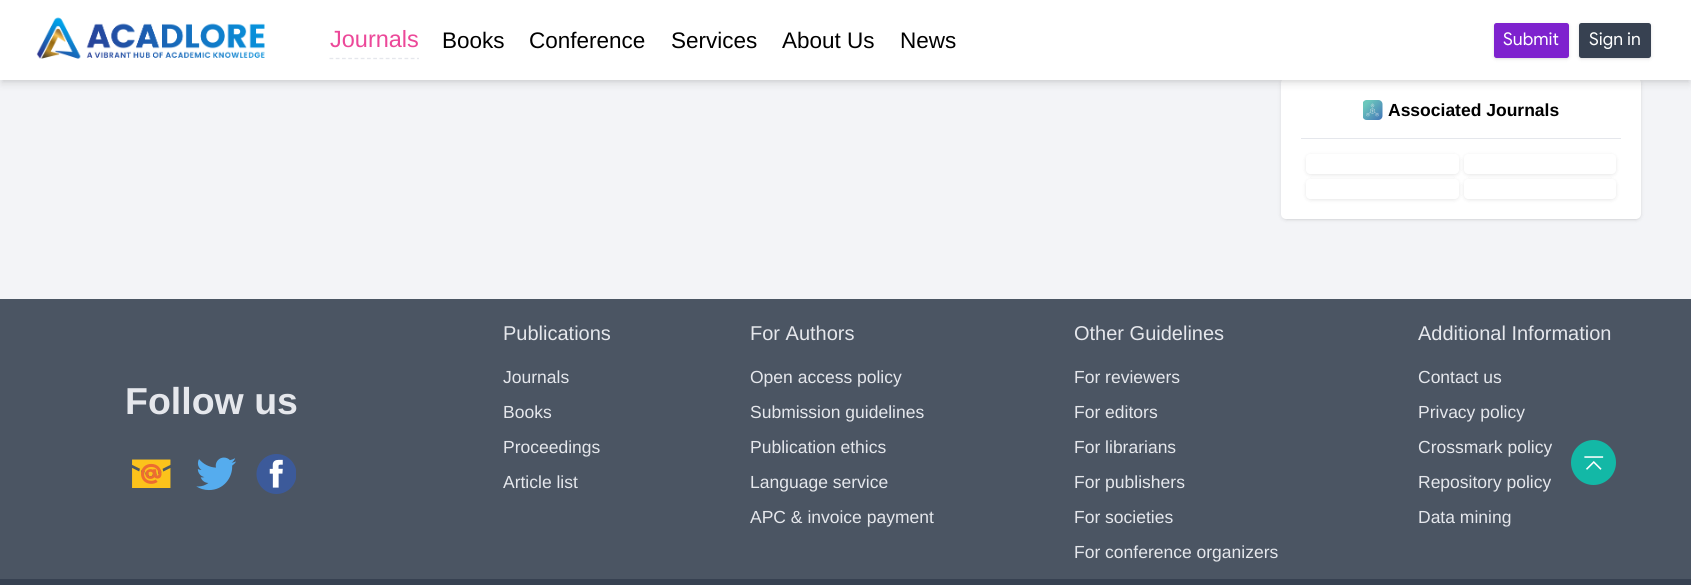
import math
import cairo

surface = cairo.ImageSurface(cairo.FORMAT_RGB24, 1691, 585)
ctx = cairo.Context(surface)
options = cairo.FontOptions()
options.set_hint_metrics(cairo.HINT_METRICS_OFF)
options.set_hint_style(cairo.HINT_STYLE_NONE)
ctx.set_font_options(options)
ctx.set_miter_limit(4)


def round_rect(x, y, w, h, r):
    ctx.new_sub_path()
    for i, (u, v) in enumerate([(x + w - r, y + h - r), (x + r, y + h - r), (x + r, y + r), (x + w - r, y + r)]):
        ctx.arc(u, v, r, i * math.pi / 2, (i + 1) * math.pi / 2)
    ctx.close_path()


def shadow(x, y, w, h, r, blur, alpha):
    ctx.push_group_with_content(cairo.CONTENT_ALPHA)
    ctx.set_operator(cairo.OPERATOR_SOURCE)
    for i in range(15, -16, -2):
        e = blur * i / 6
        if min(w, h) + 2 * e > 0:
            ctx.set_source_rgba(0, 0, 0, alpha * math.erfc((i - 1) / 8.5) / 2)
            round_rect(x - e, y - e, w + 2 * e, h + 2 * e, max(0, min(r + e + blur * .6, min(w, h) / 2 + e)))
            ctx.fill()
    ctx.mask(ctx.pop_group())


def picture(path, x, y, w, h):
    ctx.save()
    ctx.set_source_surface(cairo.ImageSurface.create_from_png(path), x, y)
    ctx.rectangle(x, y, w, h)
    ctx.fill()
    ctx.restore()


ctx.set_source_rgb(0.294, 0.333, 0.388)
ctx.paint()
ctx.set_source_rgb(0.953, 0.957, 0.965)
ctx.rectangle(0, 80, 1691, 219)
ctx.fill()
ctx.set_source_rgb(0, 0, 0)
shadow(1283, 80, 357, 139, 4, 1, 0.1)
shadow(1281, 79, 360, 141, 5, 2, 0.1)
ctx.set_source_rgb(1, 1, 1)
round_rect(1281, 78, 360, 141, 5)
ctx.fill()
ctx.set_source_rgb(0, 0, 0)
shadow(3, 5, 1686, 75, 0, 2.5, 0.1)
shadow(1, 6, 1689, 78, 0, 4, 0.1)
ctx.set_source_rgb(1, 1, 1)
ctx.rectangle(0, 0, 1691, 80)
ctx.fill()
picture("img1.png", 36, 17, 229, 42)
ctx.new_path()
ctx.move_to(329.5, 58.5)
ctx.line_to(419, 58.5)
ctx.set_source_rgb(0.898, 0.906, 0.922)
ctx.set_line_width(1.3)
ctx.set_dash([3.75, 2.5])
ctx.stroke()
ctx.select_font_face("Liberation Sans")
ctx.set_font_size(23.5)
ctx.set_source_rgb(0.925, 0.282, 0.6)
ctx.move_to(330, 47)
ctx.show_text("Journals")
ctx.set_font_size(22.5)
ctx.set_source_rgb(0, 0, 0)
ctx.move_to(442, 48)
ctx.show_text("Books")
ctx.move_to(529, 48)
ctx.show_text("Conference")
ctx.move_to(671, 48)
ctx.show_text("Services")
ctx.move_to(782, 48)
ctx.show_text("About Us")
ctx.move_to(900, 48)
ctx.show_text("News")
ctx.set_source_rgb(0, 0, 0)
shadow(1495, 25, 73, 33, 1, 1, 0.1)
shadow(1494, 24, 75, 35, 2.5, 2, 0.1)
ctx.set_source_rgb(0.494, 0.133, 0.808)
round_rect(1494, 23, 75, 35, 2.5)
ctx.fill()
ctx.select_font_face("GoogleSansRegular")
ctx.set_font_size(17.5)
ctx.set_source_rgb(1, 1, 1)
ctx.move_to(1503, 45)
ctx.show_text("Submit")
ctx.set_source_rgb(0, 0, 0)
shadow(1580, 25, 70, 33, 1, 1, 0.1)
shadow(1579, 24, 72, 35, 2.5, 2, 0.1)
ctx.set_source_rgb(0.216, 0.255, 0.318)
round_rect(1579, 23, 72, 35, 2.5)
ctx.fill()
ctx.set_source_rgb(1, 1, 1)
ctx.move_to(1589, 45)
ctx.show_text("Sign in")
ctx.set_source_rgb(0.898, 0.906, 0.922)
ctx.rectangle(1301, 138, 320, 1)
ctx.fill()
picture("img2.png", 1363, 100, 20, 20)
ctx.select_font_face("Liberation Sans", cairo.FONT_SLANT_NORMAL, cairo.FONT_WEIGHT_BOLD)
ctx.set_source_rgb(0, 0, 0)
ctx.move_to(1388, 116)
ctx.show_text("Associated Journals")
ctx.save()
ctx.set_fill_rule(cairo.FILL_RULE_EVEN_ODD)
ctx.new_path()
ctx.move_to(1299, 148)
ctx.line_to(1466, 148)
ctx.line_to(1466, 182)
ctx.line_to(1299, 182)
ctx.close_path()
ctx.move_to(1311, 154)
ctx.line_to(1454, 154)
ctx.curve_to(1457, 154, 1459, 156, 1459, 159)
ctx.line_to(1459, 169)
ctx.curve_to(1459, 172, 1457, 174, 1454, 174)
ctx.line_to(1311, 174)
ctx.curve_to(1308, 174, 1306, 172, 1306, 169)
ctx.line_to(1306, 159)
ctx.curve_to(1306, 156, 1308, 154, 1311, 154)
ctx.close_path()
ctx.clip()
ctx.set_source_rgb(0, 0, 0)
shadow(1306, 155, 153, 20, 5, 2, 0.1)
ctx.restore()
ctx.save()
ctx.set_fill_rule(cairo.FILL_RULE_EVEN_ODD)
ctx.new_path()
ctx.move_to(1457, 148)
ctx.line_to(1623, 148)
ctx.line_to(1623, 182)
ctx.line_to(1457, 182)
ctx.close_path()
ctx.move_to(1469, 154)
ctx.line_to(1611, 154)
ctx.curve_to(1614, 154, 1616, 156, 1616, 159)
ctx.line_to(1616, 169)
ctx.curve_to(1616, 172, 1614, 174, 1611, 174)
ctx.line_to(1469, 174)
ctx.curve_to(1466, 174, 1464, 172, 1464, 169)
ctx.line_to(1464, 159)
ctx.curve_to(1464, 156, 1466, 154, 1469, 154)
ctx.close_path()
ctx.clip()
ctx.set_source_rgb(0, 0, 0)
shadow(1464, 155, 152, 20, 5, 2, 0.1)
ctx.restore()
ctx.save()
ctx.set_fill_rule(cairo.FILL_RULE_EVEN_ODD)
ctx.new_path()
ctx.move_to(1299, 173)
ctx.line_to(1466, 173)
ctx.line_to(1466, 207)
ctx.line_to(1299, 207)
ctx.close_path()
ctx.move_to(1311, 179)
ctx.line_to(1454, 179)
ctx.curve_to(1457, 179, 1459, 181, 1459, 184)
ctx.line_to(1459, 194)
ctx.curve_to(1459, 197, 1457, 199, 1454, 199)
ctx.line_to(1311, 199)
ctx.curve_to(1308, 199, 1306, 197, 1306, 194)
ctx.line_to(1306, 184)
ctx.curve_to(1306, 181, 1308, 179, 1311, 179)
ctx.close_path()
ctx.clip()
ctx.set_source_rgb(0, 0, 0)
shadow(1306, 180, 153, 20, 5, 2, 0.1)
ctx.restore()
ctx.save()
ctx.set_fill_rule(cairo.FILL_RULE_EVEN_ODD)
ctx.new_path()
ctx.move_to(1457, 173)
ctx.line_to(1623, 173)
ctx.line_to(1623, 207)
ctx.line_to(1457, 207)
ctx.close_path()
ctx.move_to(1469, 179)
ctx.line_to(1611, 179)
ctx.curve_to(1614, 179, 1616, 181, 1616, 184)
ctx.line_to(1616, 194)
ctx.curve_to(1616, 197, 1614, 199, 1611, 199)
ctx.line_to(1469, 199)
ctx.curve_to(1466, 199, 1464, 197, 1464, 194)
ctx.line_to(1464, 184)
ctx.curve_to(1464, 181, 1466, 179, 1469, 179)
ctx.close_path()
ctx.clip()
ctx.set_source_rgb(0, 0, 0)
shadow(1464, 180, 152, 20, 5, 2, 0.1)
ctx.restore()
ctx.set_font_size(37.5)
ctx.set_source_rgb(0.898, 0.906, 0.922)
ctx.move_to(125, 414)
ctx.show_text("Follow us")
picture("img3.png", 132, 459, 39, 29)
picture("img4.png", 196, 457, 40, 34)
picture("img5.png", 256, 454, 40, 40)
ctx.select_font_face("Liberation Sans")
ctx.set_font_size(20)
ctx.move_to(503, 340)
ctx.show_text("Publications")
ctx.set_font_size(17.5)
ctx.move_to(503, 383)
ctx.show_text("Journals")
ctx.move_to(503, 418)
ctx.show_text("Books")
ctx.move_to(503, 453)
ctx.show_text("Proceedings")
ctx.move_to(503, 488)
ctx.show_text("Article list")
ctx.set_font_size(20)
ctx.move_to(750, 340)
ctx.show_text("For Authors")
ctx.set_font_size(17.5)
ctx.move_to(750, 383)
ctx.show_text("Open access policy")
ctx.move_to(750, 418)
ctx.show_text("Submission guidelines")
ctx.move_to(750, 453)
ctx.show_text("Publication ethics")
ctx.move_to(750, 488)
ctx.show_text("Language service")
ctx.move_to(750, 523)
ctx.show_text("APC & invoice payment")
ctx.set_font_size(20)
ctx.move_to(1074, 340)
ctx.show_text("Other Guidelines")
ctx.set_font_size(17.5)
ctx.move_to(1074, 383)
ctx.show_text("For reviewers")
ctx.move_to(1074, 418)
ctx.show_text("For editors")
ctx.move_to(1074, 453)
ctx.show_text("For librarians")
ctx.move_to(1074, 488)
ctx.show_text("For publishers")
ctx.move_to(1074, 523)
ctx.show_text("For societies")
ctx.move_to(1074, 558)
ctx.show_text("For conference organizers")
ctx.set_font_size(20)
ctx.move_to(1418, 340)
ctx.show_text("Additional Information")
ctx.set_font_size(17.5)
ctx.move_to(1418, 383)
ctx.show_text("Contact us")
ctx.move_to(1418, 418)
ctx.show_text("Privacy policy")
ctx.move_to(1418, 453)
ctx.show_text("Crossmark policy")
ctx.move_to(1418, 488)
ctx.show_text("Repository policy")
ctx.move_to(1418, 523)
ctx.show_text("Data mining")
ctx.set_source_rgb(0.216, 0.255, 0.318)
ctx.rectangle(0, 579, 1691, 6)
ctx.fill()
ctx.set_source_rgb(0.078, 0.722, 0.651)
ctx.arc(1593.5, 462.5, 22.5, 0, 2 * math.pi)
ctx.fill()
picture("img6.png", 1584, 456, 20, 14)
surface.write_to_png("page.png")
